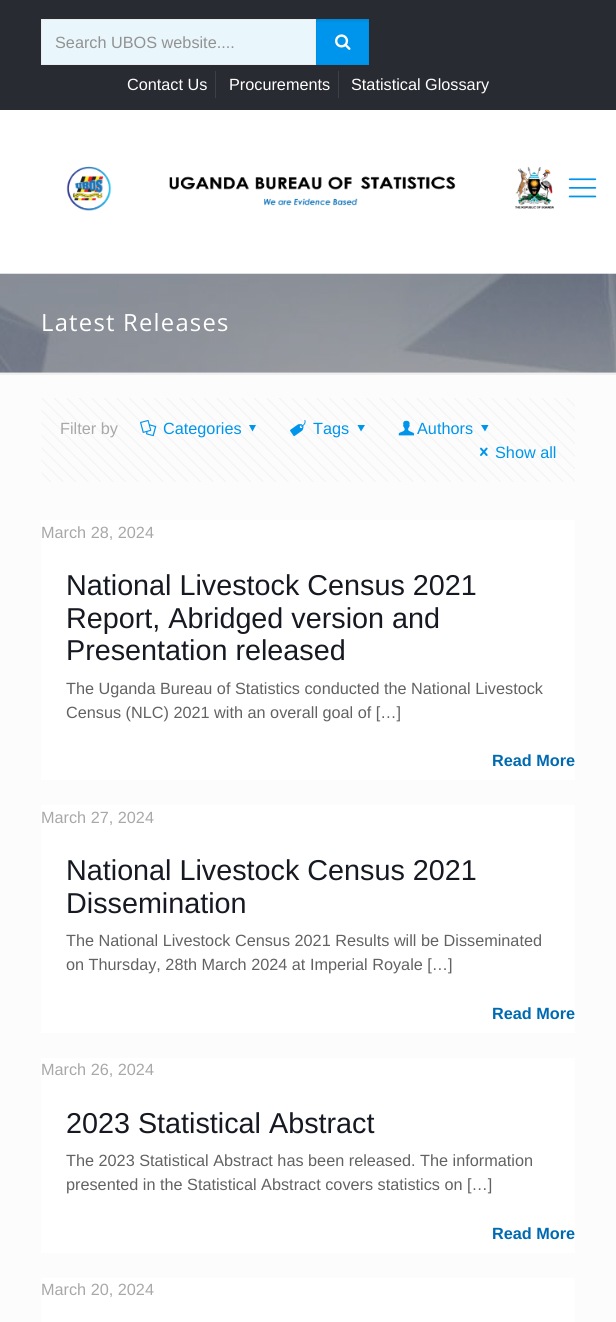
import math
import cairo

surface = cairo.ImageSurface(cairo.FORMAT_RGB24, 616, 1322)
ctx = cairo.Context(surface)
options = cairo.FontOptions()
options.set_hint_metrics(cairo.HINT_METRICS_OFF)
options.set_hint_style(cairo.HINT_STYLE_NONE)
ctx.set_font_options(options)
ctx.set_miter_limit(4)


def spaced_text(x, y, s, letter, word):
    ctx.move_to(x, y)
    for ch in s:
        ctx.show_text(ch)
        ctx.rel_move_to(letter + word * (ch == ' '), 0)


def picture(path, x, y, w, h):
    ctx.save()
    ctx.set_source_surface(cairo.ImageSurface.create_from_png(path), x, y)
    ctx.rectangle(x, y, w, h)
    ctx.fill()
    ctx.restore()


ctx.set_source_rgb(0.988, 0.988, 0.988)
ctx.paint()
ctx.set_source_rgb(1, 1, 1)
ctx.rectangle(0, 110, 616, 164)
ctx.fill()
ctx.set_source_rgb(0.161, 0.169, 0.2)
ctx.rectangle(0, 0, 616, 110)
ctx.fill()
ctx.set_source_rgb(0.914, 0.961, 0.988)
ctx.rectangle(41.5, 19.5, 274, 45)
ctx.fill_preserve()
ctx.set_source_rgb(0.922, 0.922, 0.922)
ctx.set_line_width(1)
ctx.stroke()
ctx.select_font_face("Liberation Sans")
ctx.set_font_size(16.25)
ctx.set_source_rgb(0.573, 0.573, 0.573)
ctx.move_to(55, 48)
ctx.show_text("Search UBOS website....")
ctx.set_source_rgb(0, 0.584, 0.922)
ctx.rectangle(316, 22, 53, 43)
ctx.fill()
ctx.set_source_rgb(0, 0.557, 0.875)
ctx.rectangle(316, 19, 53, 3)
ctx.fill()
ctx.rectangle(316.5, 19.5, 52, 45)
ctx.set_source_rgba(0, 0, 0, 0.03)
ctx.stroke()
picture("img1.png", 335, 34, 16, 16)
ctx.set_source_rgb(0.243, 0.251, 0.278)
ctx.rectangle(215, 71, 1, 27)
ctx.fill()
ctx.set_source_rgb(1, 1, 1)
ctx.move_to(127, 90)
ctx.show_text("Contact Us")
ctx.set_source_rgb(0.243, 0.251, 0.278)
ctx.rectangle(338, 71, 1, 27)
ctx.fill()
ctx.set_source_rgb(1, 1, 1)
ctx.move_to(229, 90)
ctx.show_text("Procurements")
ctx.move_to(351, 90)
ctx.show_text("Statistical Glossary")
picture("img2.png", 66, 166, 488, 45)
picture("img3.png", 568, 178, 29, 20)
ctx.set_source_rgb(0.969, 0.969, 0.969)
ctx.rectangle(0, 372, 616, 1)
ctx.fill()
picture("img4.png", 0, 273, 616, 100)
ctx.select_font_face("Open Sans")
ctx.set_font_size(23.75)
ctx.set_source_rgb(1, 1, 1)
spaced_text(41, 331, "Latest Releases", 1.25, 0)
ctx.set_source_rgba(0, 0, 0, 0.05)
ctx.rectangle(0, 372, 616, 3)
ctx.fill()
picture("img5.png", 41, 398, 534, 84)
ctx.select_font_face("Liberation Sans")
ctx.set_font_size(16.25)
ctx.set_source_rgb(0.659, 0.659, 0.659)
ctx.move_to(60, 434)
ctx.show_text("Filter by")
picture("img6.png", 140, 420, 17, 17)
ctx.set_source_rgb(0, 0.584, 0.922)
ctx.move_to(163, 434)
ctx.show_text("Categories")
ctx.new_path()
ctx.move_to(256, 425)
ctx.line_to(252.5, 431.5)
ctx.line_to(249, 425)
ctx.close_path()
ctx.fill()
picture("img7.png", 290, 420, 16, 17)
ctx.move_to(313, 434)
ctx.show_text("Tags")
ctx.new_path()
ctx.move_to(365, 425)
ctx.line_to(361, 431.5)
ctx.line_to(357.5, 425)
ctx.close_path()
ctx.fill()
picture("img8.png", 398, 420, 17, 16)
ctx.move_to(417, 434)
ctx.show_text("Authors")
ctx.new_path()
ctx.move_to(488.5, 425)
ctx.line_to(485, 431.5)
ctx.line_to(481, 425)
ctx.close_path()
ctx.fill()
picture("img9.png", 480, 447, 8, 9)
ctx.move_to(495, 458)
ctx.show_text("Show all")
ctx.set_source_rgb(1, 1, 1)
ctx.rectangle(41, 520, 534, 260)
ctx.fill()
ctx.set_source_rgb(0.659, 0.659, 0.659)
ctx.move_to(41, 538)
ctx.show_text("March 28, 2024")
ctx.set_font_size(28.75)
ctx.set_source_rgb(0.086, 0.098, 0.133)
ctx.move_to(66, 595)
ctx.show_text("National Livestock Census 2021")
ctx.move_to(66, 628)
ctx.show_text("Report, Abridged version and")
ctx.move_to(66, 660)
ctx.show_text("Presentation released")
ctx.set_font_size(16.25)
ctx.set_source_rgb(0.384, 0.384, 0.384)
ctx.move_to(66, 694)
ctx.show_text("The Uganda Bureau of Statistics conducted the National Livestock")
ctx.move_to(66, 718)
ctx.show_text("Census (NLC) 2021 with an overall goal of […]")
ctx.select_font_face("Liberation Sans", cairo.FONT_SLANT_NORMAL, cairo.FONT_WEIGHT_BOLD)
ctx.set_source_rgb(0, 0.416, 0.694)
ctx.move_to(492, 766)
ctx.show_text("Read More")
ctx.set_source_rgb(1, 1, 1)
ctx.rectangle(41, 805, 534, 228)
ctx.fill()
ctx.select_font_face("Liberation Sans")
ctx.set_source_rgb(0.659, 0.659, 0.659)
ctx.move_to(41, 823)
ctx.show_text("March 27, 2024")
ctx.set_font_size(28.75)
ctx.set_source_rgb(0.086, 0.098, 0.133)
ctx.move_to(66, 880)
ctx.show_text("National Livestock Census 2021")
ctx.move_to(66, 913)
ctx.show_text("Dissemination")
ctx.set_font_size(16.25)
ctx.set_source_rgb(0.384, 0.384, 0.384)
ctx.move_to(66, 946)
ctx.show_text("The National Livestock Census 2021 Results will be Disseminated")
ctx.move_to(66, 970)
ctx.show_text("on Thursday, 28th March 2024 at Imperial Royale […]")
ctx.select_font_face("Liberation Sans", cairo.FONT_SLANT_NORMAL, cairo.FONT_WEIGHT_BOLD)
ctx.set_source_rgb(0, 0.416, 0.694)
ctx.move_to(492, 1019)
ctx.show_text("Read More")
ctx.set_source_rgb(1, 1, 1)
ctx.rectangle(41, 1058, 534, 195)
ctx.fill()
ctx.select_font_face("Liberation Sans")
ctx.set_source_rgb(0.659, 0.659, 0.659)
ctx.move_to(41, 1075)
ctx.show_text("March 26, 2024")
ctx.set_font_size(28.75)
ctx.set_source_rgb(0.086, 0.098, 0.133)
ctx.move_to(66, 1133)
ctx.show_text("2023 Statistical Abstract")
ctx.set_font_size(16.25)
ctx.set_source_rgb(0.384, 0.384, 0.384)
ctx.move_to(66, 1166)
ctx.show_text("The 2023 Statistical Abstract has been released. The information")
ctx.move_to(66, 1190)
ctx.show_text("presented in the Statistical Abstract covers statistics on […]")
ctx.select_font_face("Liberation Sans", cairo.FONT_SLANT_NORMAL, cairo.FONT_WEIGHT_BOLD)
ctx.set_source_rgb(0, 0.416, 0.694)
ctx.move_to(492, 1239)
ctx.show_text("Read More")
ctx.set_source_rgb(1, 1, 1)
ctx.rectangle(41, 1278, 534, 44)
ctx.fill()
ctx.select_font_face("Liberation Sans")
ctx.set_source_rgb(0.659, 0.659, 0.659)
ctx.move_to(41, 1295)
ctx.show_text("March 20, 2024")
surface.write_to_png("page.png")
